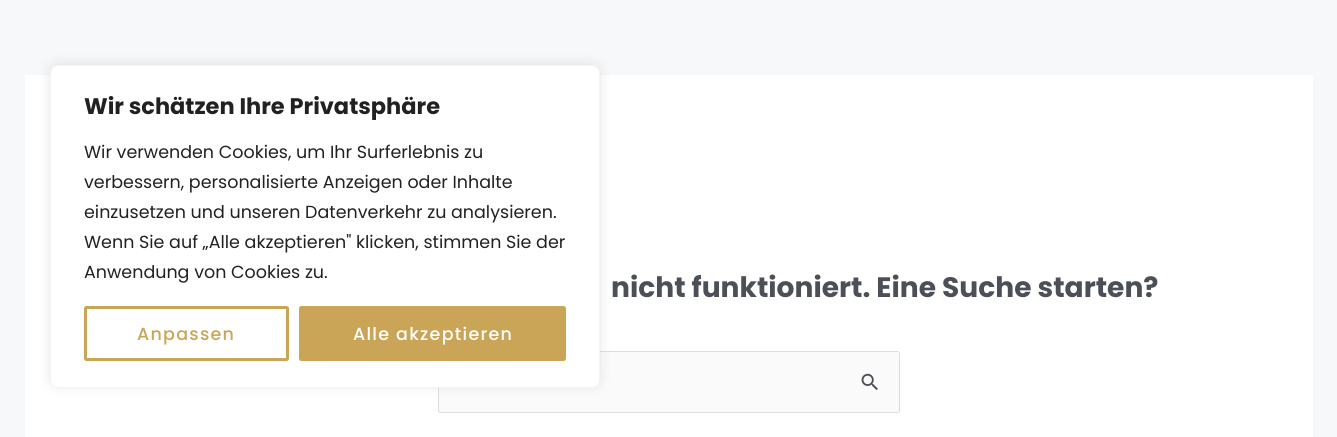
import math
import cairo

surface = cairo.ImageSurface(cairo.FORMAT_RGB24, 1337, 437)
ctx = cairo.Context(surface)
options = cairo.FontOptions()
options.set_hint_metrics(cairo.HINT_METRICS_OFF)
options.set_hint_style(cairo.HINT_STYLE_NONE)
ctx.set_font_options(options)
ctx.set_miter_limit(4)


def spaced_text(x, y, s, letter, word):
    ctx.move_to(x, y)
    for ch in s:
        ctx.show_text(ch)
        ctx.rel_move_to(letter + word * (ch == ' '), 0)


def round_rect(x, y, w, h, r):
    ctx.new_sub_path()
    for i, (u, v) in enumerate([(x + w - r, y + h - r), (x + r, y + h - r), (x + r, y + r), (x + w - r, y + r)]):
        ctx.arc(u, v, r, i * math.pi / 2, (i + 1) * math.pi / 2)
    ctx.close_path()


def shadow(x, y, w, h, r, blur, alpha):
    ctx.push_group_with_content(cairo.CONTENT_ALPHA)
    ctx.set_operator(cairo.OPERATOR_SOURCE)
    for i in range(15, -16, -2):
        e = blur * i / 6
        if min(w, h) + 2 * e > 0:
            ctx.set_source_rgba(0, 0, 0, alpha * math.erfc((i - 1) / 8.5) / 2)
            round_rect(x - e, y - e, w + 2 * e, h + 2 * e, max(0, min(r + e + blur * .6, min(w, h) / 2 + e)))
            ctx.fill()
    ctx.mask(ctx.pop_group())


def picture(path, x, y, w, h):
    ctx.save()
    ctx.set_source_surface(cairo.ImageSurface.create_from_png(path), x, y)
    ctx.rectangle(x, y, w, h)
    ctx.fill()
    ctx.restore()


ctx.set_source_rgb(0.961, 0.969, 0.973)
ctx.paint()
ctx.set_source_rgb(1, 1, 1)
ctx.rectangle(25, 75, 1288, 362)
ctx.fill()
ctx.set_source_rgb(0.98, 0.98, 0.98)
round_rect(438.5, 351.5, 461, 61, 2)
ctx.fill_preserve()
ctx.set_source_rgb(0.867, 0.867, 0.867)
ctx.set_line_width(1)
ctx.stroke()
ctx.set_source_rgb(0.675, 0.671, 0.671)
shadow(50, 64, 550, 322, 8, 6, 0.3)
ctx.set_source_rgb(1, 1, 1)
round_rect(50.5, 65.5, 549, 322, 7.5)
ctx.fill_preserve()
ctx.set_source_rgb(0.957, 0.957, 0.957)
ctx.stroke()
ctx.select_font_face("Poppins", cairo.FONT_SLANT_NORMAL, cairo.FONT_WEIGHT_BOLD)
ctx.set_font_size(22.5)
ctx.set_source_rgb(0.129, 0.129, 0.129)
ctx.move_to(84, 114)
ctx.show_text("Wir schätzen Ihre Privatsphäre")
ctx.select_font_face("Poppins")
ctx.set_font_size(17.5)
ctx.move_to(84, 158)
ctx.show_text("Wir verwenden Cookies, um Ihr Surferlebnis zu")
ctx.move_to(84, 188)
ctx.show_text("verbessern, personalisierte Anzeigen oder Inhalte")
ctx.move_to(84, 218)
ctx.show_text("einzusetzen und unseren Datenverkehr zu analysieren.")
ctx.move_to(84, 248)
ctx.show_text("Wenn Sie auf „Alle akzeptieren\" klicken, stimmen Sie der")
ctx.move_to(84, 278)
ctx.show_text("Anwendung von Cookies zu.")
round_rect(85.5, 307.5, 202, 52, 1)
ctx.set_source_rgb(0.796, 0.647, 0.341)
ctx.set_line_width(3)
ctx.stroke()
ctx.select_font_face("Poppins Medium")
spaced_text(137, 340, "Anpassen", 1.25, 0)
round_rect(300.5, 307.5, 264, 52, 1)
ctx.fill_preserve()
ctx.stroke()
ctx.set_source_rgb(1, 1, 1)
spaced_text(353, 340, "Alle akzeptieren", 1.25, 0)
ctx.select_font_face("Poppins", cairo.FONT_SLANT_NORMAL, cairo.FONT_WEIGHT_BOLD)
ctx.set_font_size(28.1)
ctx.set_source_rgb(0.294, 0.31, 0.345)
ctx.move_to(611, 297)
ctx.show_text("nicht funktioniert. Eine Suche starten?")
picture("img1.png", 861, 373, 17, 18)
surface.write_to_png("page.png")
